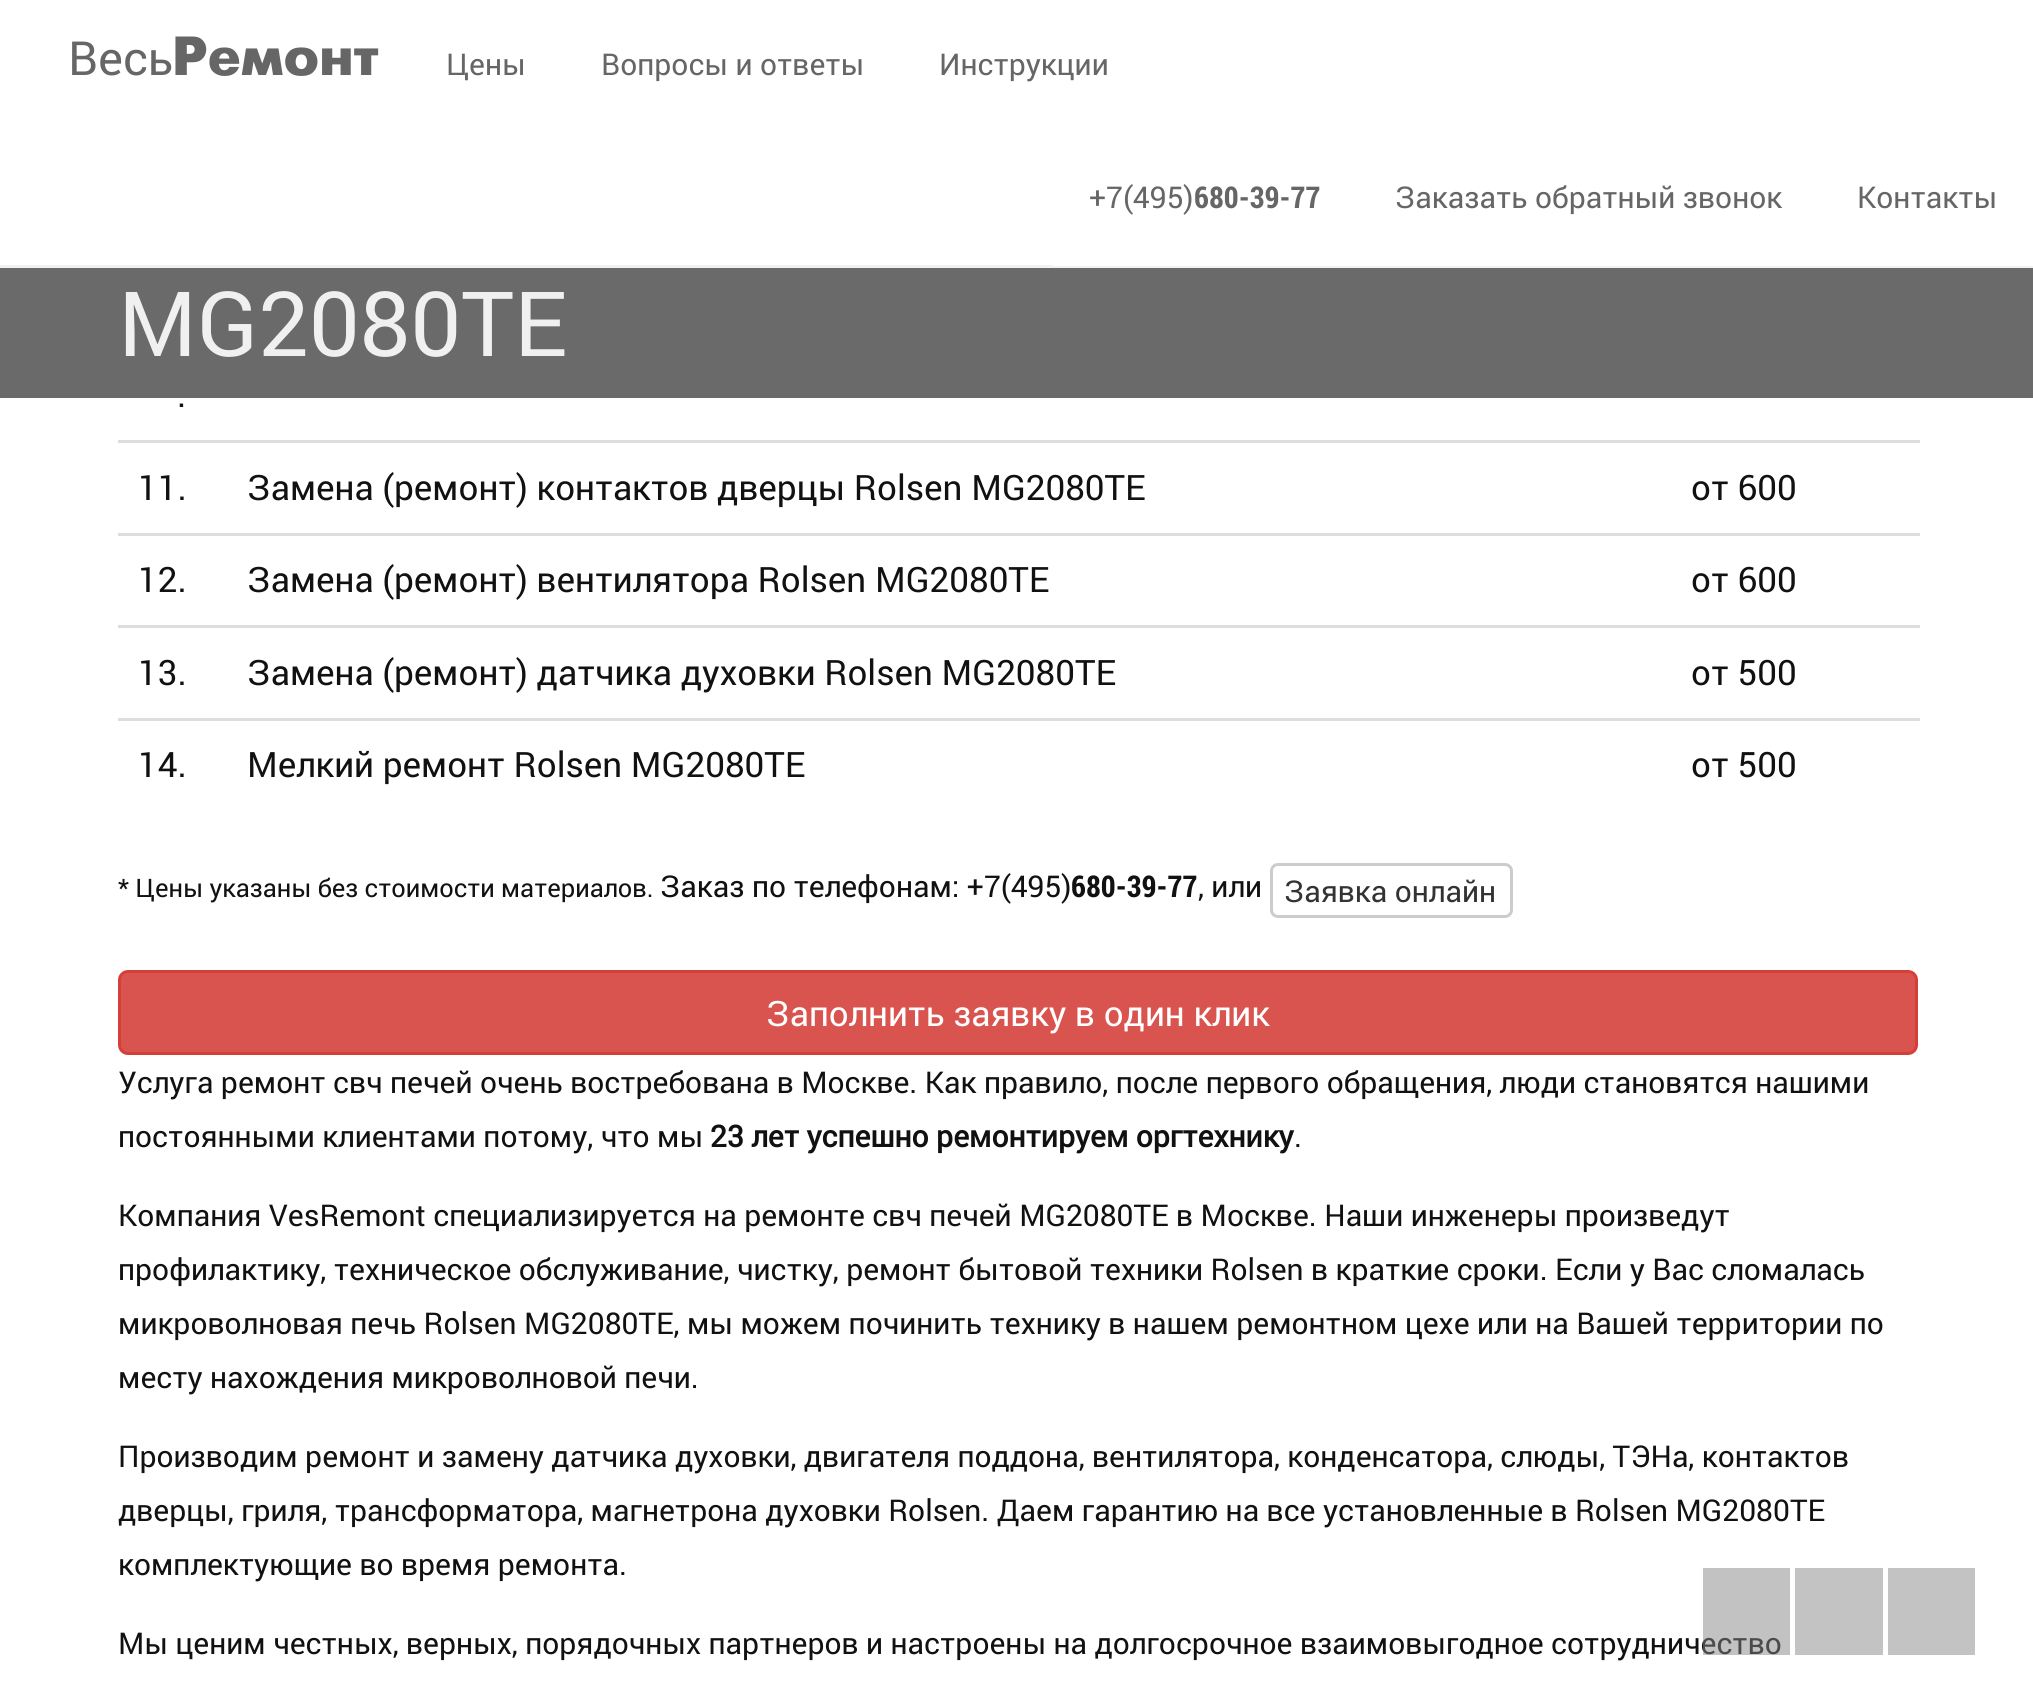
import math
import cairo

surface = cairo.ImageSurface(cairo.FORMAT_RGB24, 2033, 1683)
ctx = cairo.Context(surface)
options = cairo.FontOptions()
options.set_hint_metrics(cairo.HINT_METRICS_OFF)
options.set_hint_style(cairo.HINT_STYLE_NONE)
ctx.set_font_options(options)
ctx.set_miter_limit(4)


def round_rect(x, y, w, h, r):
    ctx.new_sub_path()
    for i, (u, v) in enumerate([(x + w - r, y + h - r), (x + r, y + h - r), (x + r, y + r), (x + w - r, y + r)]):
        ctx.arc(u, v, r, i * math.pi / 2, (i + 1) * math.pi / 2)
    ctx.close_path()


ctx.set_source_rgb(1, 1, 1)
ctx.paint()
ctx.set_source_rgb(0.949, 0.949, 0.949)
ctx.rectangle(0, 265, 2033, 3)
ctx.fill()
ctx.select_font_face("Roboto")
ctx.set_font_size(47)
ctx.set_source_rgb(0.4, 0.4, 0.4)
ctx.move_to(68, 75)
ctx.show_text("Весь")
ctx.select_font_face("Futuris", cairo.FONT_SLANT_NORMAL, cairo.FONT_WEIGHT_BOLD)
ctx.set_font_size(55)
ctx.move_to(172, 75)
ctx.show_text("Ремонт")
ctx.select_font_face("Roboto")
ctx.set_font_size(30)
ctx.move_to(446, 75)
ctx.show_text("Цены")
ctx.move_to(601, 75)
ctx.show_text("Вопросы и ответы")
ctx.move_to(939, 75)
ctx.show_text("Инструкции")
ctx.set_source_rgb(1, 1, 1)
ctx.rectangle(1053, 265, 980, 1)
ctx.fill()
ctx.set_source_rgb(0.4, 0.4, 0.4)
ctx.move_to(1089, 208)
ctx.show_text("+7(495)")
ctx.select_font_face("Roboto Condensed", cairo.FONT_SLANT_NORMAL, cairo.FONT_WEIGHT_BOLD)
ctx.move_to(1194, 208)
ctx.show_text("680-39-77")
ctx.select_font_face("Roboto")
ctx.move_to(1395, 208)
ctx.show_text("Заказать обратный звонок")
ctx.move_to(1857, 208)
ctx.show_text("Контакты")
ctx.set_source_rgb(0.416, 0.416, 0.416)
ctx.rectangle(0, 268, 2033, 130)
ctx.fill()
ctx.set_font_size(90)
ctx.set_source_rgb(0.941, 0.941, 0.941)
ctx.move_to(118, 356)
ctx.show_text("MG2080TE")
ctx.set_font_size(35)
ctx.set_source_rgb(0.067, 0.067, 0.067)
ctx.move_to(177, 407)
ctx.show_text(".")
ctx.move_to(138, 500)
ctx.show_text("11.")
ctx.move_to(247, 500)
ctx.show_text("Замена (ремонт) контактов дверцы Rolsen MG2080TE")
ctx.set_source_rgb(0.867, 0.867, 0.867)
ctx.rectangle(118, 440, 1802, 3)
ctx.fill()
ctx.set_source_rgb(0.067, 0.067, 0.067)
ctx.move_to(1691, 500)
ctx.show_text("от 600")
ctx.move_to(138, 592)
ctx.show_text("12.")
ctx.move_to(247, 592)
ctx.show_text("Замена (ремонт) вентилятора Rolsen MG2080TE")
ctx.set_source_rgb(0.867, 0.867, 0.867)
ctx.rectangle(118, 533, 1802, 3)
ctx.fill()
ctx.set_source_rgb(0.067, 0.067, 0.067)
ctx.move_to(1691, 592)
ctx.show_text("от 600")
ctx.move_to(138, 685)
ctx.show_text("13.")
ctx.move_to(247, 685)
ctx.show_text("Замена (ремонт) датчика духовки Rolsen MG2080TE")
ctx.set_source_rgb(0.867, 0.867, 0.867)
ctx.rectangle(118, 625, 1802, 3)
ctx.fill()
ctx.set_source_rgb(0.067, 0.067, 0.067)
ctx.move_to(1691, 685)
ctx.show_text("от 500")
ctx.move_to(138, 777)
ctx.show_text("14.")
ctx.move_to(247, 777)
ctx.show_text("Мелкий ремонт Rolsen MG2080TE")
ctx.set_source_rgb(0.867, 0.867, 0.867)
ctx.rectangle(118, 718, 1802, 3)
ctx.fill()
ctx.set_source_rgb(0.067, 0.067, 0.067)
ctx.move_to(1691, 777)
ctx.show_text("от 500")
ctx.set_font_size(25.5)
ctx.move_to(118, 897)
ctx.show_text("* Цены указаны без стоимости материалов.")
ctx.set_font_size(30)
ctx.move_to(660, 897)
ctx.show_text("Заказ по телефонам: +7(495)")
ctx.select_font_face("Roboto Condensed", cairo.FONT_SLANT_NORMAL, cairo.FONT_WEIGHT_BOLD)
ctx.move_to(1071, 897)
ctx.show_text("680-39-77")
ctx.select_font_face("Roboto")
ctx.move_to(1198, 897)
ctx.show_text(", или")
round_rect(1271.5, 864.5, 240, 52, 6.5)
ctx.set_source_rgb(0.8, 0.8, 0.8)
ctx.set_line_width(3)
ctx.stroke()
ctx.set_source_rgb(0.2, 0.2, 0.2)
ctx.move_to(1284, 902)
ctx.show_text("Заявка онлайн")
ctx.set_source_rgb(0.851, 0.325, 0.31)
round_rect(119.5, 971.5, 1797, 82, 8.5)
ctx.fill_preserve()
ctx.set_source_rgb(0.831, 0.247, 0.227)
ctx.stroke()
ctx.set_font_size(35)
ctx.set_source_rgb(1, 1, 1)
ctx.move_to(766, 1026)
ctx.show_text("Заполнить заявку в один клик")
ctx.set_font_size(30)
ctx.set_source_rgb(0.067, 0.067, 0.067)
ctx.move_to(118, 1093)
ctx.show_text("Услуга ремонт свч печей очень востребована в Москве. Как правило, после первого обращения, люди становятся нашими")
ctx.move_to(118, 1147)
ctx.show_text("постоянными клиентами потому, что мы")
ctx.select_font_face("Roboto", cairo.FONT_SLANT_NORMAL, cairo.FONT_WEIGHT_BOLD)
ctx.move_to(710, 1147)
ctx.show_text("23 лет успешно ремонтируем оргтехнику")
ctx.select_font_face("Roboto")
ctx.move_to(1294, 1147)
ctx.show_text(".")
ctx.move_to(118, 1226)
ctx.show_text("Компания VesRemont специализируется на ремонте свч печей MG2080TE в Москве. Наши инженеры произведут")
ctx.move_to(118, 1280)
ctx.show_text("профилактику, техническое обслуживание, чистку, ремонт бытовой техники Rolsen в краткие сроки. Если у Вас сломалась")
ctx.move_to(118, 1334)
ctx.show_text("микроволновая печь Rolsen MG2080TE, мы можем починить технику в нашем ремонтном цехе или на Вашей территории по")
ctx.move_to(118, 1388)
ctx.show_text("месту нахождения микроволновой печи.")
ctx.move_to(118, 1467)
ctx.show_text("Производим ремонт и замену датчика духовки, двигателя поддона, вентилятора, конденсатора, слюды, ТЭНа, контактов")
ctx.move_to(118, 1521)
ctx.show_text("дверцы, гриля, трансформатора, магнетрона духовки Rolsen. Даем гарантию на все установленные в Rolsen MG2080TE")
ctx.move_to(118, 1575)
ctx.show_text("комплектующие во время ремонта.")
ctx.move_to(118, 1654)
ctx.show_text("Мы ценим честных, верных, порядочных партнеров и настроены на долгосрочное взаимовыгодное сотрудничество")
ctx.set_source_rgba(0.529, 0.529, 0.529, 0.5)
ctx.rectangle(1703, 1568, 87, 87)
ctx.fill()
ctx.set_source_rgb(0.765, 0.765, 0.765)
ctx.rectangle(1795, 1568, 88, 87)
ctx.fill()
ctx.rectangle(1888, 1568, 87, 87)
ctx.fill()
surface.write_to_png("page.png")
